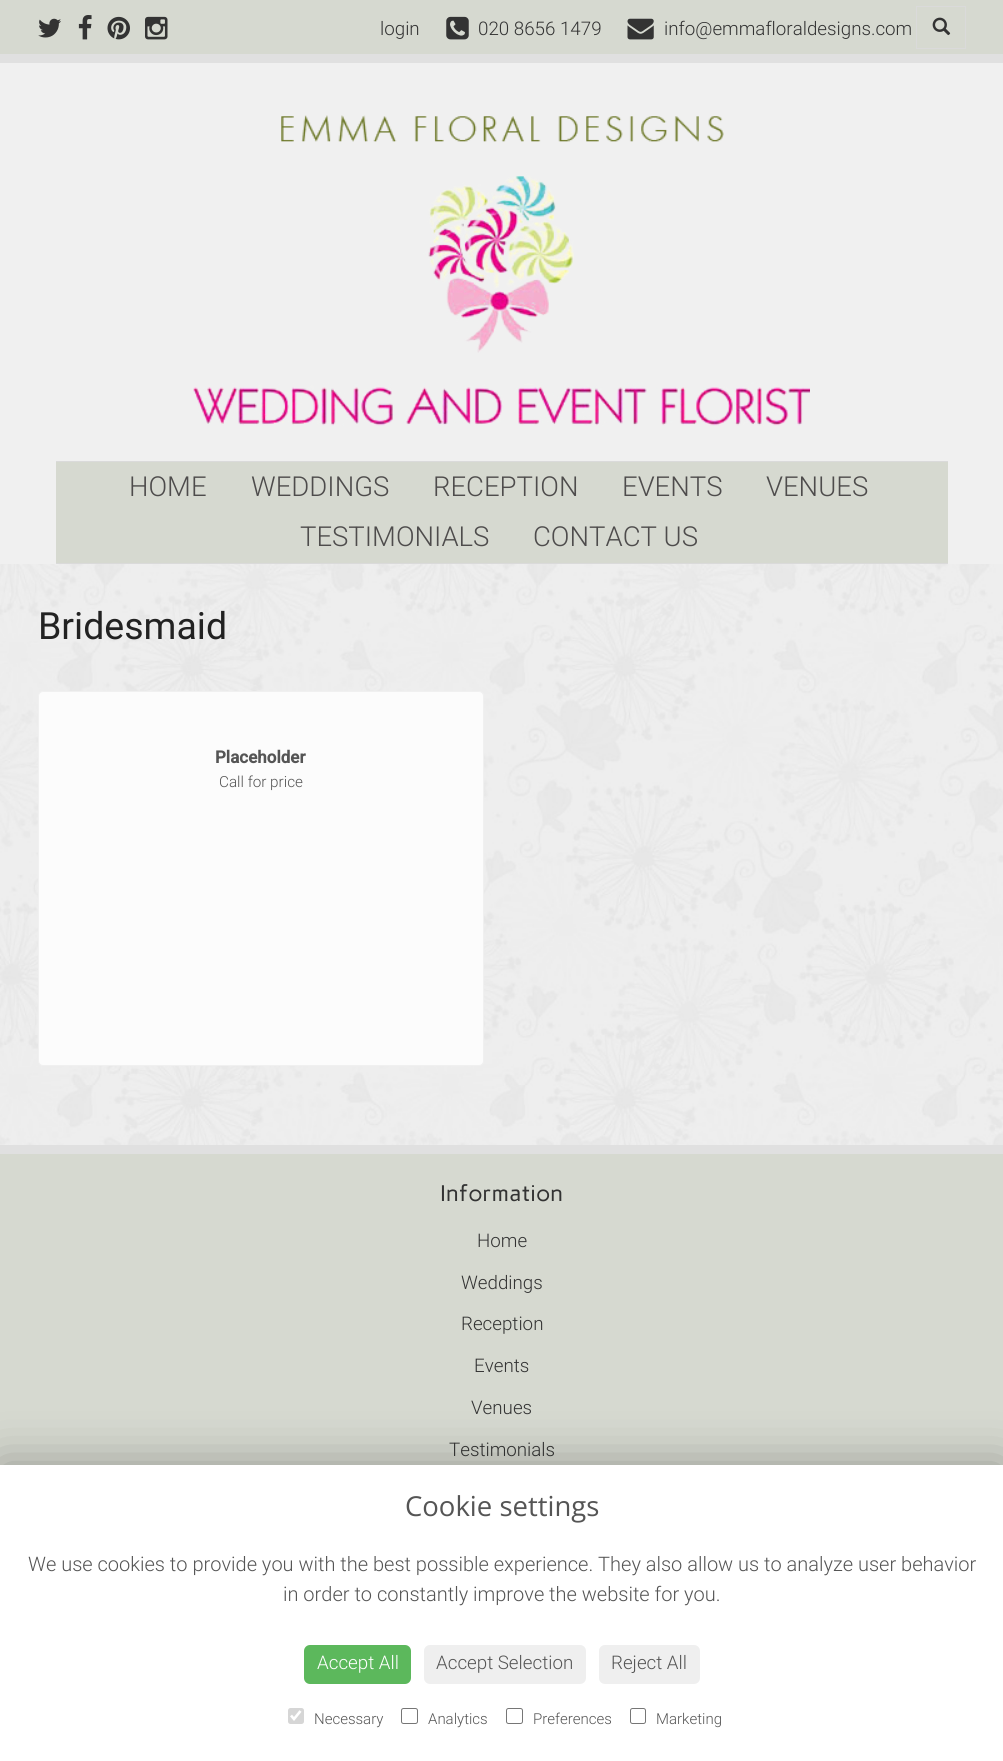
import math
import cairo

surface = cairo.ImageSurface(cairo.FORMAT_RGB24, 1003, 1761)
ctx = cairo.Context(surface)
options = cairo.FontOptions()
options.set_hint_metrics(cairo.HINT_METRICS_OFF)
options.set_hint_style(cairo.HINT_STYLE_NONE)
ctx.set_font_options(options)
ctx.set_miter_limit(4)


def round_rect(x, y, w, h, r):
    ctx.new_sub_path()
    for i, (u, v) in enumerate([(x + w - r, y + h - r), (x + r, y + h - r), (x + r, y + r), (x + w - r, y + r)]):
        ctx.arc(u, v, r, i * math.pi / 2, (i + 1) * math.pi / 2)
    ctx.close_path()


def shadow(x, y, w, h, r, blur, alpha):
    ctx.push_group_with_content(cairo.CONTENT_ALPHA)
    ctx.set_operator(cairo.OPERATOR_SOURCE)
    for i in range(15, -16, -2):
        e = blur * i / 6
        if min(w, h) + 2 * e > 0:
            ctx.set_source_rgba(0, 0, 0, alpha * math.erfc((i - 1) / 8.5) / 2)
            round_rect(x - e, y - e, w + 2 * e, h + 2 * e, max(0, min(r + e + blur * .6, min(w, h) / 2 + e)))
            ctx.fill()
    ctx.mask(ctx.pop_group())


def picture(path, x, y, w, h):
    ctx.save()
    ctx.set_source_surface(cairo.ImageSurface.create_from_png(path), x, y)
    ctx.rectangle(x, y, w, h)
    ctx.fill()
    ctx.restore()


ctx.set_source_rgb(1, 1, 1)
ctx.paint()
picture("img1.png", 0, 564, 1003, 581)
ctx.set_source_rgb(0.839, 0.851, 0.816)
ctx.rectangle(0, 0, 1003, 54)
ctx.fill()
ctx.set_source_rgb(0.878, 0.878, 0.878)
ctx.rectangle(0, 54, 1003, 9)
ctx.fill()
picture("img2.png", 38, 18, 23, 20)
picture("img3.png", 78, 15, 14, 25)
picture("img4.png", 107, 16, 23, 24)
picture("img5.png", 145, 16, 23, 24)
ctx.select_font_face("Roboto Light")
ctx.set_font_size(18.75)
ctx.set_source_rgb(0.2, 0.2, 0.2)
ctx.move_to(380, 35)
ctx.show_text("login")
picture("img6.png", 446, 16, 23, 24)
ctx.move_to(478, 35)
ctx.show_text("020 8656 1479")
picture("img7.png", 627, 18, 27, 22)
ctx.move_to(664, 35)
ctx.show_text("info@emmafloraldesigns.com")
ctx.rectangle(916.5, 6.5, 49, 42)
ctx.set_source_rgb(0.855, 0.855, 0.855)
ctx.set_line_width(1)
ctx.stroke()
picture("img8.png", 932, 17, 19, 19)
ctx.set_source_rgb(0.941, 0.941, 0.941)
ctx.rectangle(0, 63, 1003, 501)
ctx.fill()
picture("img9.png", 193, 115, 617, 311)
ctx.set_source_rgb(0.839, 0.851, 0.816)
ctx.rectangle(56, 462, 892, 101)
ctx.fill()
ctx.set_source_rgb(0.855, 0.855, 0.855)
ctx.rectangle(56, 461, 892, 1)
ctx.fill()
ctx.rectangle(56, 563, 892, 1)
ctx.fill()
ctx.set_font_size(27.5)
ctx.set_source_rgb(0.306, 0.298, 0.298)
ctx.move_to(129, 496)
ctx.show_text("HOME")
ctx.move_to(251, 496)
ctx.show_text("WEDDINGS")
ctx.move_to(433, 496)
ctx.show_text("RECEPTION")
ctx.move_to(622, 496)
ctx.show_text("EVENTS")
ctx.move_to(766, 496)
ctx.show_text("VENUES")
ctx.move_to(300, 546)
ctx.show_text("TESTIMONIALS")
ctx.move_to(533, 546)
ctx.show_text("CONTACT US")
ctx.select_font_face("Roboto")
ctx.set_font_size(37.5)
ctx.set_source_rgb(0.133, 0.133, 0.133)
ctx.move_to(38, 639)
ctx.show_text("Bridesmaid")
ctx.set_source_rgb(0.988, 0.988, 0.988)
round_rect(38.5, 691.5, 445, 374, 4.5)
ctx.fill_preserve()
ctx.set_source_rgb(0.941, 0.941, 0.941)
ctx.stroke()
ctx.select_font_face("Roboto", cairo.FONT_SLANT_NORMAL, cairo.FONT_WEIGHT_BOLD)
ctx.set_font_size(17)
ctx.set_source_rgb(0.333, 0.333, 0.333)
ctx.move_to(215, 763)
ctx.show_text("Placeholder")
ctx.select_font_face("Roboto Light")
ctx.set_font_size(15.25)
ctx.move_to(219, 787)
ctx.show_text("Call for price")
ctx.set_source_rgb(0.839, 0.851, 0.816)
ctx.rectangle(0, 1154, 1003, 311)
ctx.fill()
ctx.set_source_rgb(0.878, 0.878, 0.878)
ctx.rectangle(0, 1145, 1003, 9)
ctx.fill()
ctx.select_font_face("Carme")
ctx.set_font_size(22.5)
ctx.set_source_rgb(0.2, 0.2, 0.2)
ctx.move_to(440, 1201)
ctx.show_text("Information")
ctx.select_font_face("Roboto Light")
ctx.set_font_size(18.75)
ctx.move_to(477, 1247)
ctx.show_text("Home")
ctx.move_to(461, 1289)
ctx.show_text("Weddings")
ctx.move_to(461, 1330)
ctx.show_text("Reception")
ctx.move_to(474, 1372)
ctx.show_text("Events")
ctx.move_to(471, 1414)
ctx.show_text("Venues")
ctx.move_to(449, 1456)
ctx.show_text("Testimonials")
ctx.set_source_rgb(0, 0, 0)
shadow(0, 1465, 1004, 296, 0, 25, 0.31)
ctx.set_source_rgb(1, 1, 1)
ctx.rectangle(0, 1465, 1003, 296)
ctx.fill()
ctx.select_font_face("Open Sans")
ctx.set_font_size(27.5)
ctx.set_source_rgb(0.333, 0.333, 0.333)
ctx.move_to(405, 1516)
ctx.show_text("Cookie settings")
ctx.select_font_face("Roboto Light")
ctx.set_font_size(20)
ctx.move_to(28, 1571)
ctx.show_text("We use cookies to provide you with the best possible experience. They also allow us to analyze user behavior")
ctx.move_to(283, 1601)
ctx.show_text("in order to constantly improve the website for you.")
ctx.set_source_rgb(0.361, 0.722, 0.361)
round_rect(304, 1645, 107, 39, 6)
ctx.fill()
ctx.set_font_size(18.75)
ctx.set_source_rgb(1, 1, 1)
ctx.move_to(317, 1669)
ctx.show_text("Accept All")
ctx.set_source_rgb(0.937, 0.937, 0.937)
round_rect(424, 1645, 162, 39, 6)
ctx.fill()
ctx.set_source_rgb(0.333, 0.333, 0.333)
ctx.move_to(436, 1669)
ctx.show_text("Accept Selection")
ctx.set_source_rgb(0.937, 0.937, 0.937)
round_rect(599, 1645, 101, 39, 6)
ctx.fill()
ctx.set_source_rgb(0.333, 0.333, 0.333)
ctx.move_to(611, 1669)
ctx.show_text("Reject All")
ctx.set_source_rgb(0.839, 0.839, 0.839)
round_rect(288, 1708, 16, 16, 2.5)
ctx.fill()
ctx.new_path()
ctx.move_to(291, 1715.5)
ctx.line_to(294, 1719)
ctx.line_to(300.5, 1711)
ctx.set_source_rgb(1, 1, 1)
ctx.set_line_width(2.6)
ctx.stroke()
ctx.set_font_size(15)
ctx.set_source_rgb(0.333, 0.333, 0.333)
ctx.move_to(314, 1724)
ctx.show_text("Necessary")
round_rect(401.5, 1708.5, 16, 15, 2)
ctx.set_source_rgb(0.463, 0.463, 0.463)
ctx.set_line_width(1)
ctx.stroke()
ctx.set_source_rgb(0.333, 0.333, 0.333)
ctx.move_to(428, 1724)
ctx.show_text("Analytics")
round_rect(506.5, 1708.5, 16, 15, 2)
ctx.set_source_rgb(0.463, 0.463, 0.463)
ctx.stroke()
ctx.set_source_rgb(0.333, 0.333, 0.333)
ctx.move_to(533, 1724)
ctx.show_text("Preferences")
round_rect(630.5, 1708.5, 15, 15, 2)
ctx.set_source_rgb(0.463, 0.463, 0.463)
ctx.stroke()
ctx.set_source_rgb(0.333, 0.333, 0.333)
ctx.move_to(656, 1724)
ctx.show_text("Marketing")
surface.write_to_png("page.png")
